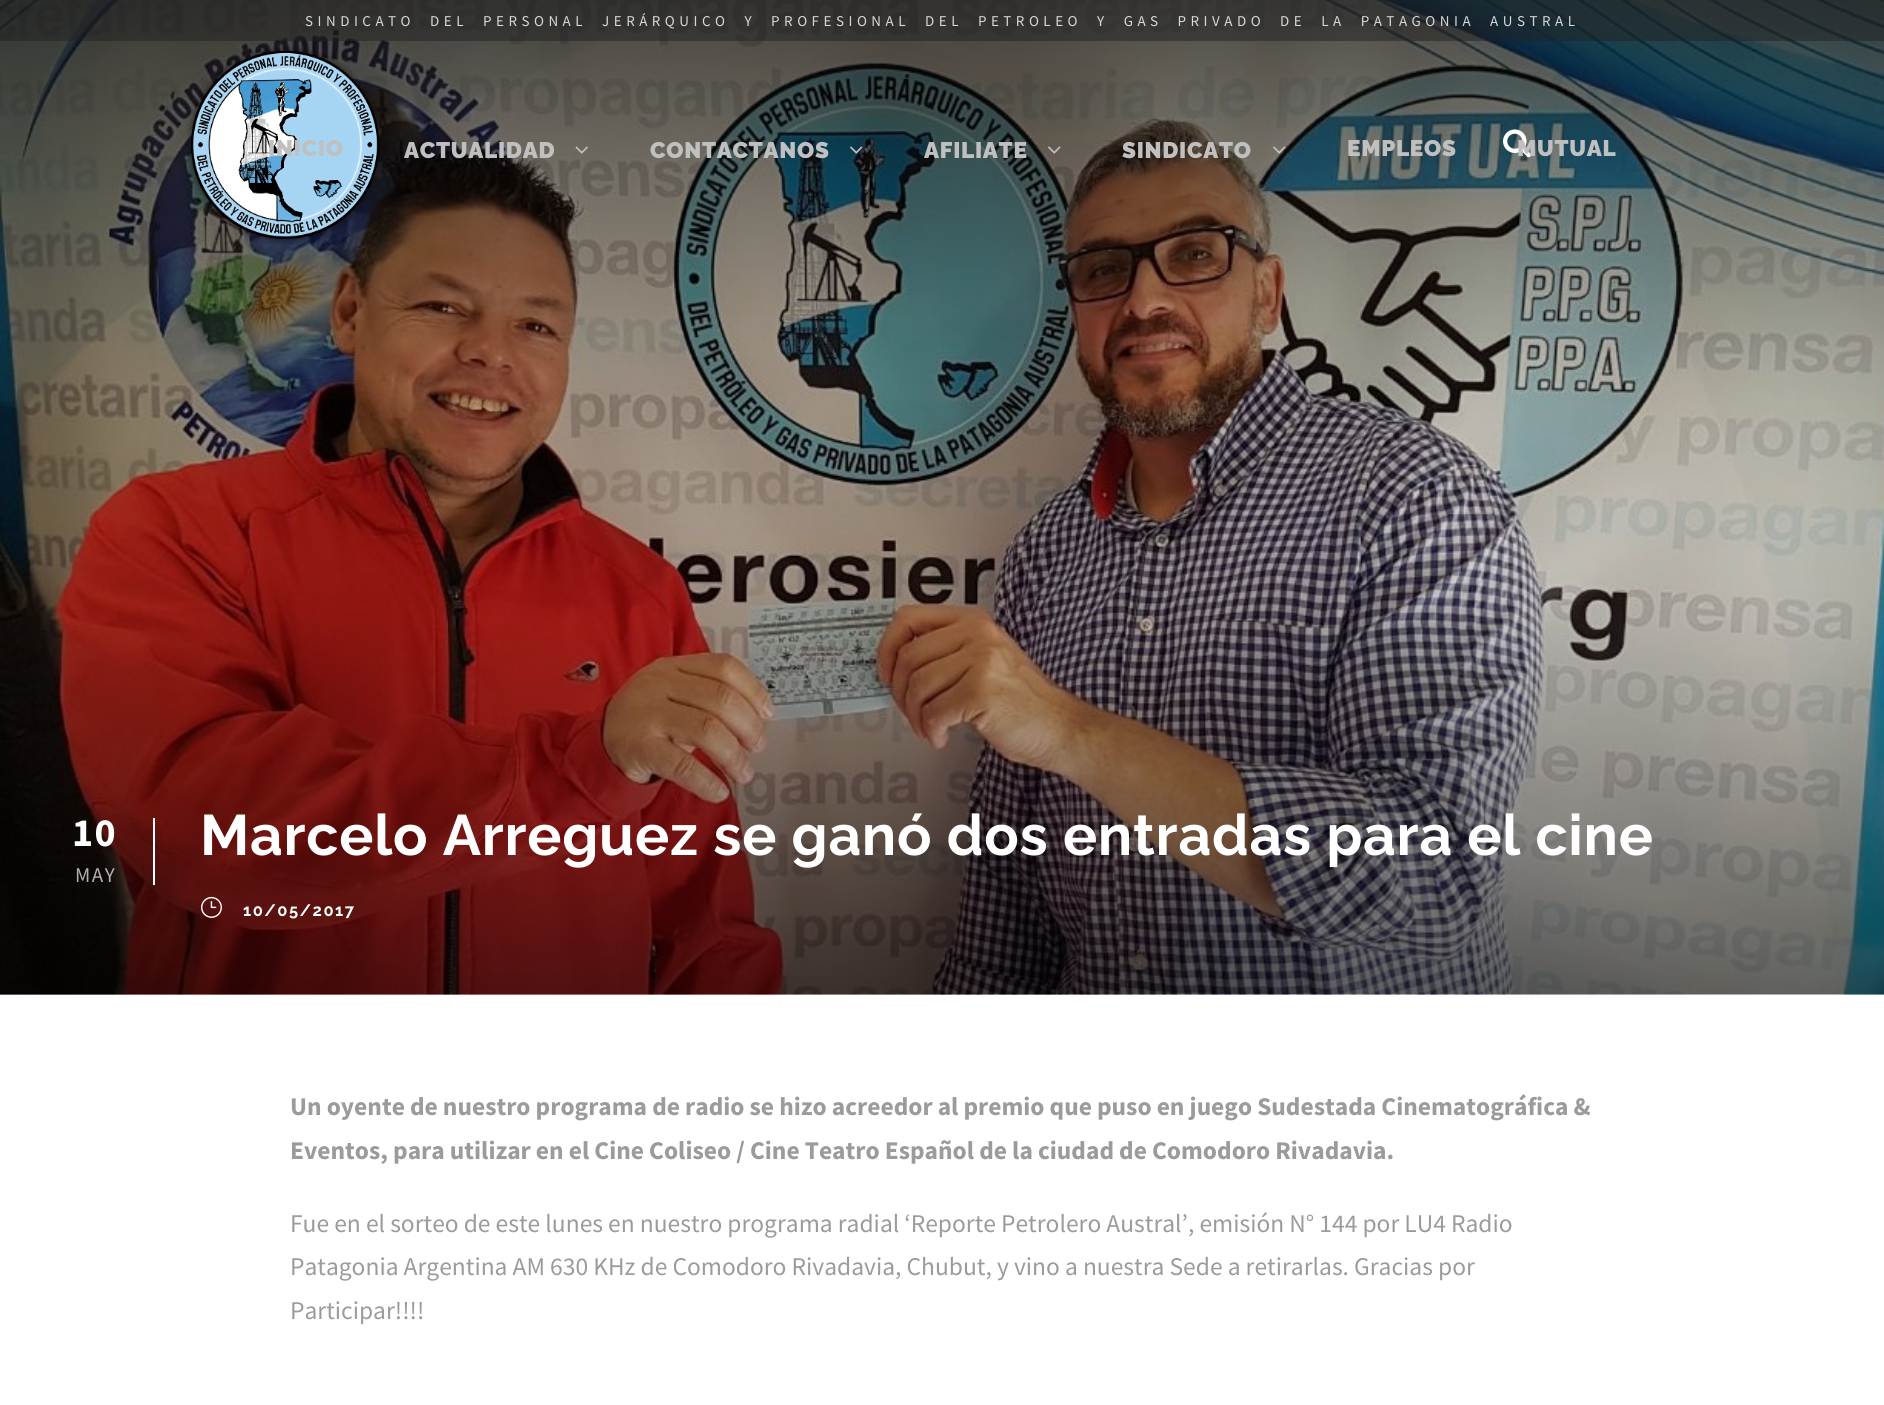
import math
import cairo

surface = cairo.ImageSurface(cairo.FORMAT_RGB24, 1884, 1405)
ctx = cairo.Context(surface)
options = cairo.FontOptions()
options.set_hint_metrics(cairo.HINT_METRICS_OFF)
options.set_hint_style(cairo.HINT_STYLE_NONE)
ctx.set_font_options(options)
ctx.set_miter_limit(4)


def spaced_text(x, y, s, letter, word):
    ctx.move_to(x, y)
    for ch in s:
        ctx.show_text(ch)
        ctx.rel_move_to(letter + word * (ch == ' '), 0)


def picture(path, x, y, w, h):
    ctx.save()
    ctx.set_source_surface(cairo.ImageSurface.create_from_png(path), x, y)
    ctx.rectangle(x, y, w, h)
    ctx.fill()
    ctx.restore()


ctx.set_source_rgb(1, 1, 1)
ctx.paint()
picture("img7.png", 0, 0, 1884, 995)
picture("img8.png", 0, 0, 1884, 995)
ctx.set_source_rgba(0.133, 0.133, 0.133, 0.5)
ctx.rectangle(0, 0, 1884, 41)
ctx.fill()
ctx.select_font_face("Source Sans Pro")
ctx.set_font_size(15)
ctx.set_source_rgb(0.847, 0.847, 0.847)
spaced_text(305, 26, "SINDICATO DEL PERSONAL JERÁRQUICO Y PROFESIONAL DEL PETROLEO Y GAS PRIVADO DE LA PATAGONIA AUSTRAL", 4.5, 7.5)
picture("img1.png", 186, 46, 195, 198)
picture("img2.png", 1503, 129, 28, 29)
ctx.select_font_face("Raleway Black")
ctx.set_font_size(22.5)
ctx.set_source_rgb(0.753, 0.753, 0.753)
spaced_text(268, 156, "INICIO", 0.75, 0)
spaced_text(404, 158, "ACTUALIDAD", 0.75, 0)
picture("img3.png", 575, 146, 13, 8)
spaced_text(650, 158, "CONTACTANOS", 0.75, 0)
picture("img4.png", 850, 146, 13, 8)
spaced_text(924, 158, "AFILIATE", 0.75, 0)
picture("img5.png", 1048, 146, 13, 8)
spaced_text(1122, 158, "SINDICATO", 0.75, 0)
picture("img6.png", 1273, 146, 13, 8)
spaced_text(1347, 156, "EMPLEOS", 0.75, 0)
spaced_text(1517, 156, "MUTUAL", 0.75, 0)
ctx.set_source_rgb(1, 1, 1)
ctx.rectangle(153, 818, 2, 67)
ctx.fill()
ctx.select_font_face("Source Sans Pro", cairo.FONT_SLANT_NORMAL, cairo.FONT_WEIGHT_BOLD)
ctx.set_font_size(40)
spaced_text(72, 846, "10", 1.5, 0)
ctx.select_font_face("Source Sans Pro")
ctx.set_font_size(21)
ctx.set_source_rgb(0.694, 0.694, 0.694)
spaced_text(75, 882, "MAY", 1.5, 0)
ctx.select_font_face("Raleway", cairo.FONT_SLANT_NORMAL, cairo.FONT_WEIGHT_BOLD)
ctx.set_font_size(57)
ctx.set_source_rgb(1, 1, 1)
spaced_text(200, 855, "Marcelo Arreguez se ganó dos entradas para el cine", 0.75, 0)
picture("img9.png", 201, 896, 21, 22)
ctx.set_font_size(16.5)
spaced_text(243, 916, "10/05/2017", 1.5, 0)
ctx.select_font_face("Source Sans Pro", cairo.FONT_SLANT_NORMAL, cairo.FONT_WEIGHT_BOLD)
ctx.set_font_size(25.5)
ctx.set_source_rgb(0.608, 0.608, 0.608)
ctx.move_to(290, 1115)
ctx.show_text("Un oyente de nuestro programa de radio se hizo acreedor al premio que puso en juego Sudestada Cinematográfica &")
ctx.move_to(290, 1159)
ctx.show_text("Eventos, para utilizar en el Cine Coliseo / Cine Teatro Español de la ciudad de Comodoro Rivadavia.")
ctx.select_font_face("Source Sans Pro")
ctx.move_to(290, 1232)
ctx.show_text("Fue en el sorteo de este lunes en nuestro programa radial ‘Reporte Petrolero Austral’, emisión N° 144 por LU4 Radio")
ctx.move_to(290, 1275)
ctx.show_text("Patagonia Argentina AM 630 KHz de Comodoro Rivadavia, Chubut, y vino a nuestra Sede a retirarlas. Gracias por")
ctx.move_to(290, 1319)
ctx.show_text("Participar!!!!")
surface.write_to_png("page.png")
